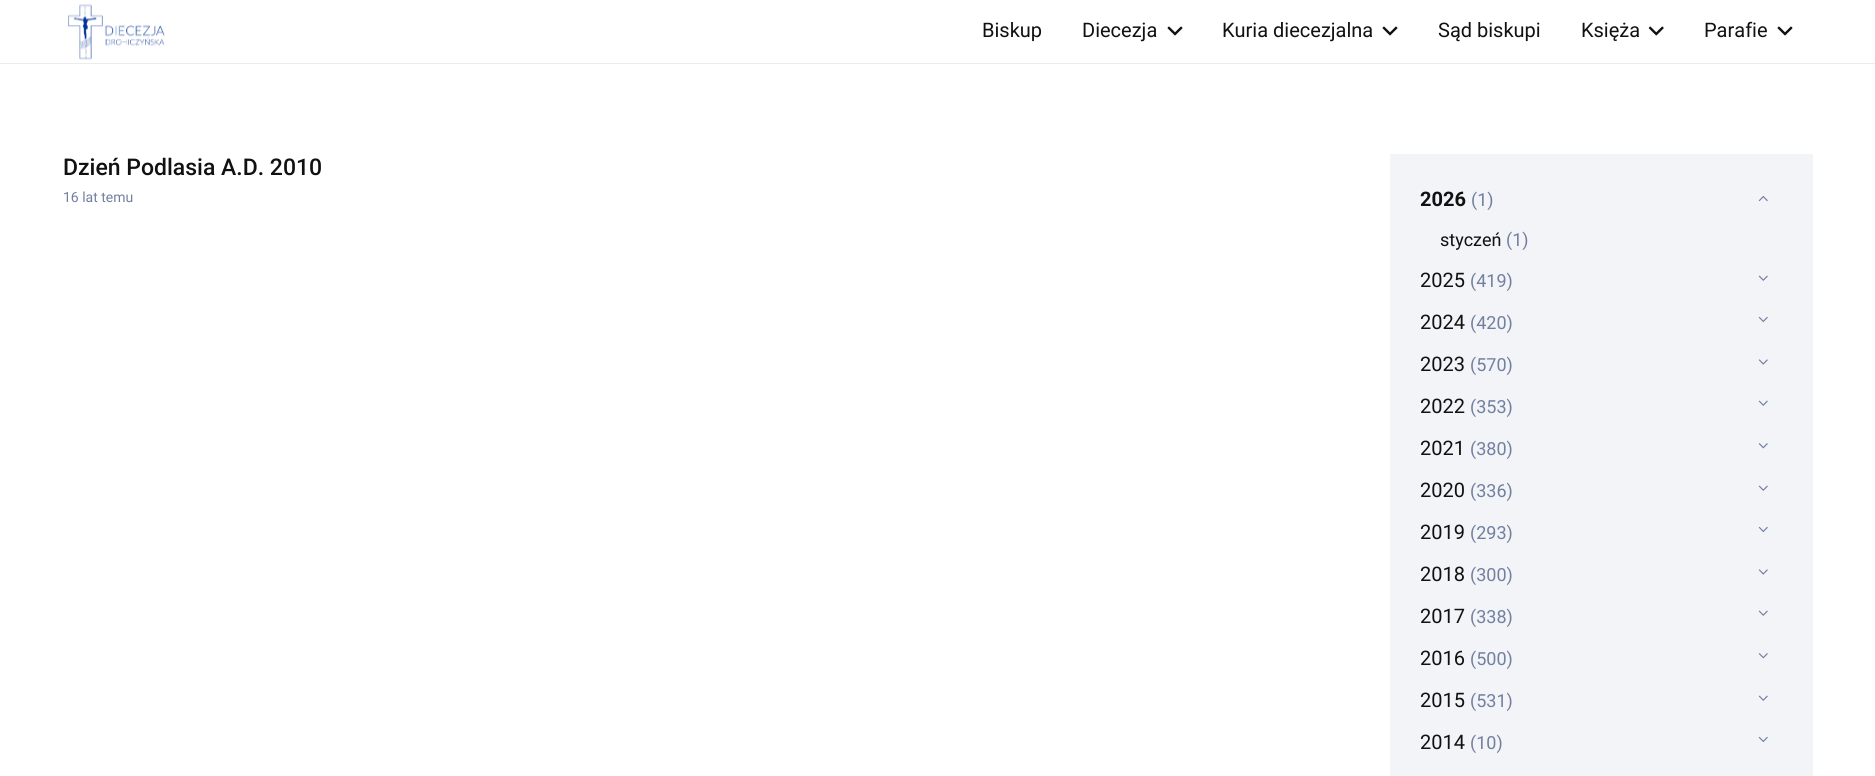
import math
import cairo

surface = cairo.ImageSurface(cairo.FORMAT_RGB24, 1875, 776)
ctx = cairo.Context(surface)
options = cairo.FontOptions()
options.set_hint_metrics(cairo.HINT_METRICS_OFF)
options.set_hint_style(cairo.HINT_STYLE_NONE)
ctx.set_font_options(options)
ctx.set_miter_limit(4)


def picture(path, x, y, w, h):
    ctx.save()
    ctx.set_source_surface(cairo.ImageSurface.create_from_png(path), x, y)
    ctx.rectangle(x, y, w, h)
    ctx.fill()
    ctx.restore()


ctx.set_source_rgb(1, 1, 1)
ctx.paint()
ctx.set_source_rgb(0.922, 0.922, 0.922)
ctx.rectangle(0, 63, 1875, 1)
ctx.fill()
picture("img1.png", 68, 4, 97, 56)
ctx.select_font_face("Roboto")
ctx.set_font_size(20)
ctx.set_source_rgb(0.067, 0.067, 0.067)
ctx.move_to(982, 37)
ctx.show_text("Biskup")
ctx.move_to(1082, 37)
ctx.show_text("Diecezja")
picture("img2.png", 1167, 26, 16, 10)
ctx.move_to(1222, 37)
ctx.show_text("Kuria diecezjalna")
picture("img2.png", 1382, 26, 16, 10)
ctx.move_to(1438, 37)
ctx.show_text("Sąd biskupi")
ctx.move_to(1581, 37)
ctx.show_text("Księża")
picture("img3.png", 1648, 26, 16, 10)
ctx.move_to(1704, 37)
ctx.show_text("Parafie")
picture("img2.png", 1777, 26, 16, 10)
ctx.select_font_face("Roboto Medium")
ctx.set_font_size(23)
ctx.move_to(63, 175)
ctx.show_text("Dzień Podlasia A.D. 2010")
ctx.select_font_face("Roboto")
ctx.set_font_size(14)
ctx.set_source_rgb(0.447, 0.498, 0.624)
ctx.move_to(63, 202)
ctx.show_text("16 lat temu")
ctx.set_source_rgb(0.949, 0.957, 0.969)
ctx.rectangle(1390, 154, 423, 622)
ctx.fill()
ctx.select_font_face("Roboto", cairo.FONT_SLANT_NORMAL, cairo.FONT_WEIGHT_BOLD)
ctx.set_font_size(20)
ctx.set_source_rgb(0.067, 0.067, 0.067)
ctx.move_to(1420, 206)
ctx.show_text("2026")
ctx.select_font_face("Roboto")
ctx.set_font_size(18)
ctx.set_source_rgb(0.447, 0.498, 0.624)
ctx.move_to(1471, 206)
ctx.show_text("(1)")
picture("img4.png", 1758, 195, 10, 7)
ctx.set_source_rgb(0.067, 0.067, 0.067)
ctx.move_to(1440, 246)
ctx.show_text("styczeń")
ctx.set_source_rgb(0.447, 0.498, 0.624)
ctx.move_to(1506, 246)
ctx.show_text("(1)")
ctx.set_font_size(20)
ctx.set_source_rgb(0.067, 0.067, 0.067)
ctx.move_to(1420, 287)
ctx.show_text("2025")
ctx.set_font_size(18)
ctx.set_source_rgb(0.447, 0.498, 0.624)
ctx.move_to(1470, 287)
ctx.show_text("(419)")
picture("img5.png", 1758, 275, 10, 6)
ctx.set_font_size(20)
ctx.set_source_rgb(0.067, 0.067, 0.067)
ctx.move_to(1420, 329)
ctx.show_text("2024")
ctx.set_font_size(18)
ctx.set_source_rgb(0.447, 0.498, 0.624)
ctx.move_to(1470, 329)
ctx.show_text("(420)")
picture("img6.png", 1758, 316, 10, 7)
ctx.set_font_size(20)
ctx.set_source_rgb(0.067, 0.067, 0.067)
ctx.move_to(1420, 371)
ctx.show_text("2023")
ctx.set_font_size(18)
ctx.set_source_rgb(0.447, 0.498, 0.624)
ctx.move_to(1470, 371)
ctx.show_text("(570)")
picture("img7.png", 1758, 359, 10, 6)
ctx.set_font_size(20)
ctx.set_source_rgb(0.067, 0.067, 0.067)
ctx.move_to(1420, 413)
ctx.show_text("2022")
ctx.set_font_size(18)
ctx.set_source_rgb(0.447, 0.498, 0.624)
ctx.move_to(1470, 413)
ctx.show_text("(353)")
picture("img5.png", 1758, 400, 10, 6)
ctx.set_font_size(20)
ctx.set_source_rgb(0.067, 0.067, 0.067)
ctx.move_to(1420, 455)
ctx.show_text("2021")
ctx.set_font_size(18)
ctx.set_source_rgb(0.447, 0.498, 0.624)
ctx.move_to(1470, 455)
ctx.show_text("(380)")
picture("img8.png", 1758, 443, 10, 6)
ctx.set_font_size(20)
ctx.set_source_rgb(0.067, 0.067, 0.067)
ctx.move_to(1420, 497)
ctx.show_text("2020")
ctx.set_font_size(18)
ctx.set_source_rgb(0.447, 0.498, 0.624)
ctx.move_to(1470, 497)
ctx.show_text("(336)")
picture("img5.png", 1758, 485, 10, 6)
ctx.set_font_size(20)
ctx.set_source_rgb(0.067, 0.067, 0.067)
ctx.move_to(1420, 539)
ctx.show_text("2019")
ctx.set_font_size(18)
ctx.set_source_rgb(0.447, 0.498, 0.624)
ctx.move_to(1470, 539)
ctx.show_text("(293)")
picture("img6.png", 1758, 526, 10, 7)
ctx.set_font_size(20)
ctx.set_source_rgb(0.067, 0.067, 0.067)
ctx.move_to(1420, 581)
ctx.show_text("2018")
ctx.set_font_size(18)
ctx.set_source_rgb(0.447, 0.498, 0.624)
ctx.move_to(1470, 581)
ctx.show_text("(300)")
picture("img7.png", 1758, 569, 10, 6)
ctx.set_font_size(20)
ctx.set_source_rgb(0.067, 0.067, 0.067)
ctx.move_to(1420, 623)
ctx.show_text("2017")
ctx.set_font_size(18)
ctx.set_source_rgb(0.447, 0.498, 0.624)
ctx.move_to(1470, 623)
ctx.show_text("(338)")
picture("img5.png", 1758, 610, 10, 6)
ctx.set_font_size(20)
ctx.set_source_rgb(0.067, 0.067, 0.067)
ctx.move_to(1420, 665)
ctx.show_text("2016")
ctx.set_font_size(18)
ctx.set_source_rgb(0.447, 0.498, 0.624)
ctx.move_to(1470, 665)
ctx.show_text("(500)")
picture("img8.png", 1758, 653, 10, 6)
ctx.set_font_size(20)
ctx.set_source_rgb(0.067, 0.067, 0.067)
ctx.move_to(1420, 707)
ctx.show_text("2015")
ctx.set_font_size(18)
ctx.set_source_rgb(0.447, 0.498, 0.624)
ctx.move_to(1470, 707)
ctx.show_text("(531)")
picture("img5.png", 1758, 695, 10, 6)
ctx.set_font_size(20)
ctx.set_source_rgb(0.067, 0.067, 0.067)
ctx.move_to(1420, 749)
ctx.show_text("2014")
ctx.set_font_size(18)
ctx.set_source_rgb(0.447, 0.498, 0.624)
ctx.move_to(1470, 749)
ctx.show_text("(10)")
picture("img6.png", 1758, 736, 10, 7)
surface.write_to_png("page.png")
